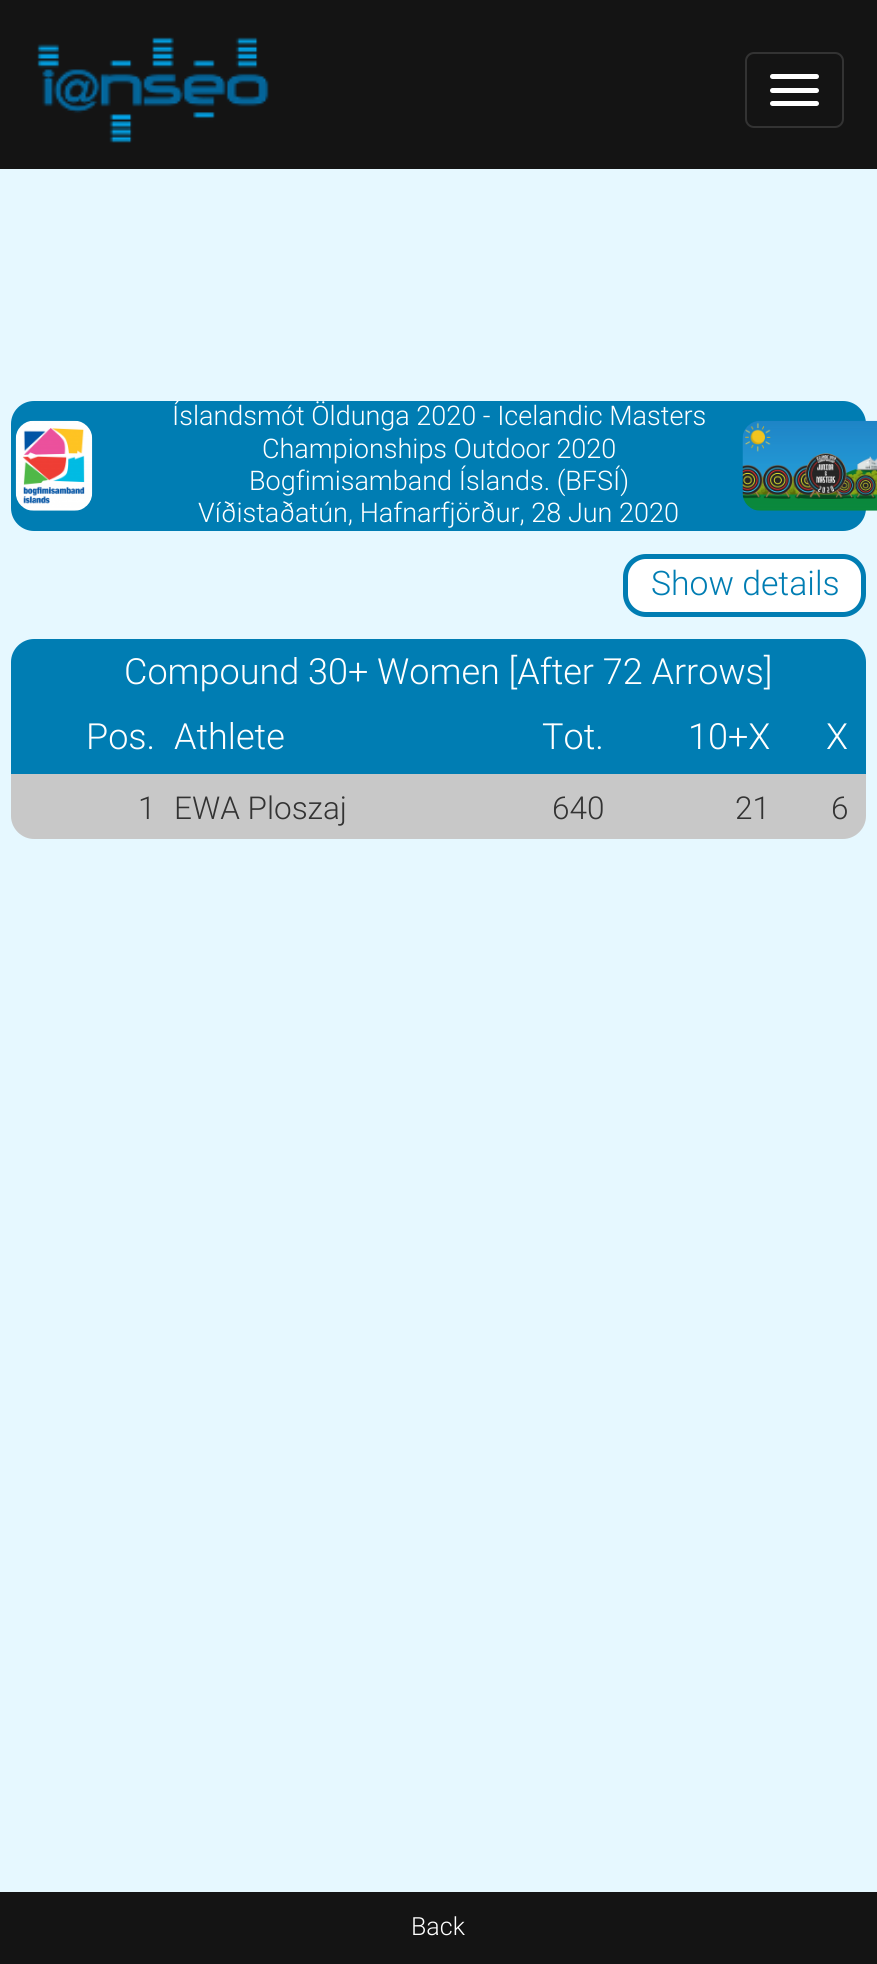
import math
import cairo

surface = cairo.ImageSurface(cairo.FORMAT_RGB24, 877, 1964)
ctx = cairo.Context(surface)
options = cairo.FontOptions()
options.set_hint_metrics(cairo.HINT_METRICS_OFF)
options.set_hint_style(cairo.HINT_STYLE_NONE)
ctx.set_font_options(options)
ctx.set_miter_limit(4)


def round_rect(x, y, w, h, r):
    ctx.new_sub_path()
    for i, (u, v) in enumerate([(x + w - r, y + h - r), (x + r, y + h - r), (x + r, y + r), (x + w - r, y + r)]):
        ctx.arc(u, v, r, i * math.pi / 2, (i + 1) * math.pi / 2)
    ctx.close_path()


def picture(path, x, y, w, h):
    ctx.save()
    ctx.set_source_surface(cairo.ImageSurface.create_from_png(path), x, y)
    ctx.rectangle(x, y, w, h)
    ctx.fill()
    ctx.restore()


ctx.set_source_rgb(0.902, 0.969, 1)
ctx.paint()
ctx.set_source_rgb(0.082, 0.082, 0.082)
ctx.rectangle(0, 0, 877, 169)
ctx.fill()
picture("img1.png", 37, 37, 232, 106)
round_rect(746, 53, 97, 74, 8)
ctx.set_source_rgb(0.2, 0.2, 0.2)
ctx.stroke()
ctx.set_source_rgb(1, 1, 1)
round_rect(770, 74, 49, 5, 2.5)
ctx.fill()
round_rect(770, 88, 49, 5, 2.5)
ctx.fill()
round_rect(770, 101, 49, 5, 2.5)
ctx.fill()
ctx.set_source_rgb(0, 0.49, 0.702)
round_rect(11, 401, 855, 130, 23)
ctx.fill()
picture("img2.png", 15, 420, 78, 91)
ctx.select_font_face("Roboto Light")
ctx.set_font_size(27)
ctx.set_source_rgb(1, 1, 1)
ctx.move_to(172, 425)
ctx.show_text("Íslandsmót Öldunga 2020 - Icelandic Masters")
ctx.move_to(262, 458)
ctx.show_text("Championships Outdoor 2020")
ctx.move_to(249, 490)
ctx.show_text("Bogfimisamband Íslands. (BFSÍ)")
ctx.move_to(198, 522)
ctx.show_text("Víðistaðatún, Hafnarfjörður, 28 Jun 2020")
picture("img3.png", 742, 420, 135, 91)
round_rect(625.5, 556.5, 238, 58, 20.5)
ctx.fill_preserve()
ctx.set_source_rgb(0, 0.49, 0.702)
ctx.set_line_width(5)
ctx.stroke()
ctx.set_font_size(33.75)
ctx.move_to(651, 595)
ctx.show_text("Show details")
ctx.new_path()
ctx.move_to(34, 639)
ctx.line_to(843, 639)
ctx.curve_to(855.5, 639, 866, 649.5, 866, 662)
ctx.line_to(866, 707)
ctx.line_to(11, 707)
ctx.line_to(11, 662)
ctx.curve_to(11, 649.5, 21.5, 639, 34, 639)
ctx.close_path()
ctx.fill()
ctx.set_font_size(36)
ctx.set_source_rgb(1, 1, 1)
ctx.move_to(124, 684)
ctx.show_text("Compound 30+ Women [After 72 Arrows]")
ctx.set_source_rgb(0, 0.49, 0.702)
ctx.rectangle(11, 707, 855, 67)
ctx.fill()
ctx.set_source_rgb(1, 1, 1)
ctx.move_to(86, 749)
ctx.show_text("Pos.")
ctx.move_to(174, 749)
ctx.show_text("Athlete")
ctx.move_to(542, 749)
ctx.show_text("Tot.")
ctx.move_to(688, 749)
ctx.show_text("10+X")
ctx.move_to(826, 749)
ctx.show_text("X")
ctx.set_source_rgb(0.784, 0.784, 0.784)
ctx.new_path()
ctx.move_to(11, 774)
ctx.line_to(866, 774)
ctx.line_to(866, 816)
ctx.curve_to(866, 828.5, 855.5, 839, 843, 839)
ctx.line_to(34, 839)
ctx.curve_to(21.5, 839, 11, 828.5, 11, 816)
ctx.close_path()
ctx.fill()
ctx.set_font_size(31.5)
ctx.set_source_rgb(0.2, 0.2, 0.2)
ctx.move_to(138, 819)
ctx.show_text("1")
ctx.move_to(174, 819)
ctx.show_text("EWA Ploszaj")
ctx.move_to(552, 819)
ctx.show_text("640")
ctx.move_to(735, 819)
ctx.show_text("21")
ctx.move_to(831, 819)
ctx.show_text("6")
ctx.set_source_rgb(0.082, 0.082, 0.082)
ctx.rectangle(0, 1892, 877, 72)
ctx.fill()
ctx.set_font_size(25)
ctx.set_source_rgb(1, 1, 1)
ctx.move_to(411, 1935)
ctx.show_text("Back")
surface.write_to_png("page.png")
